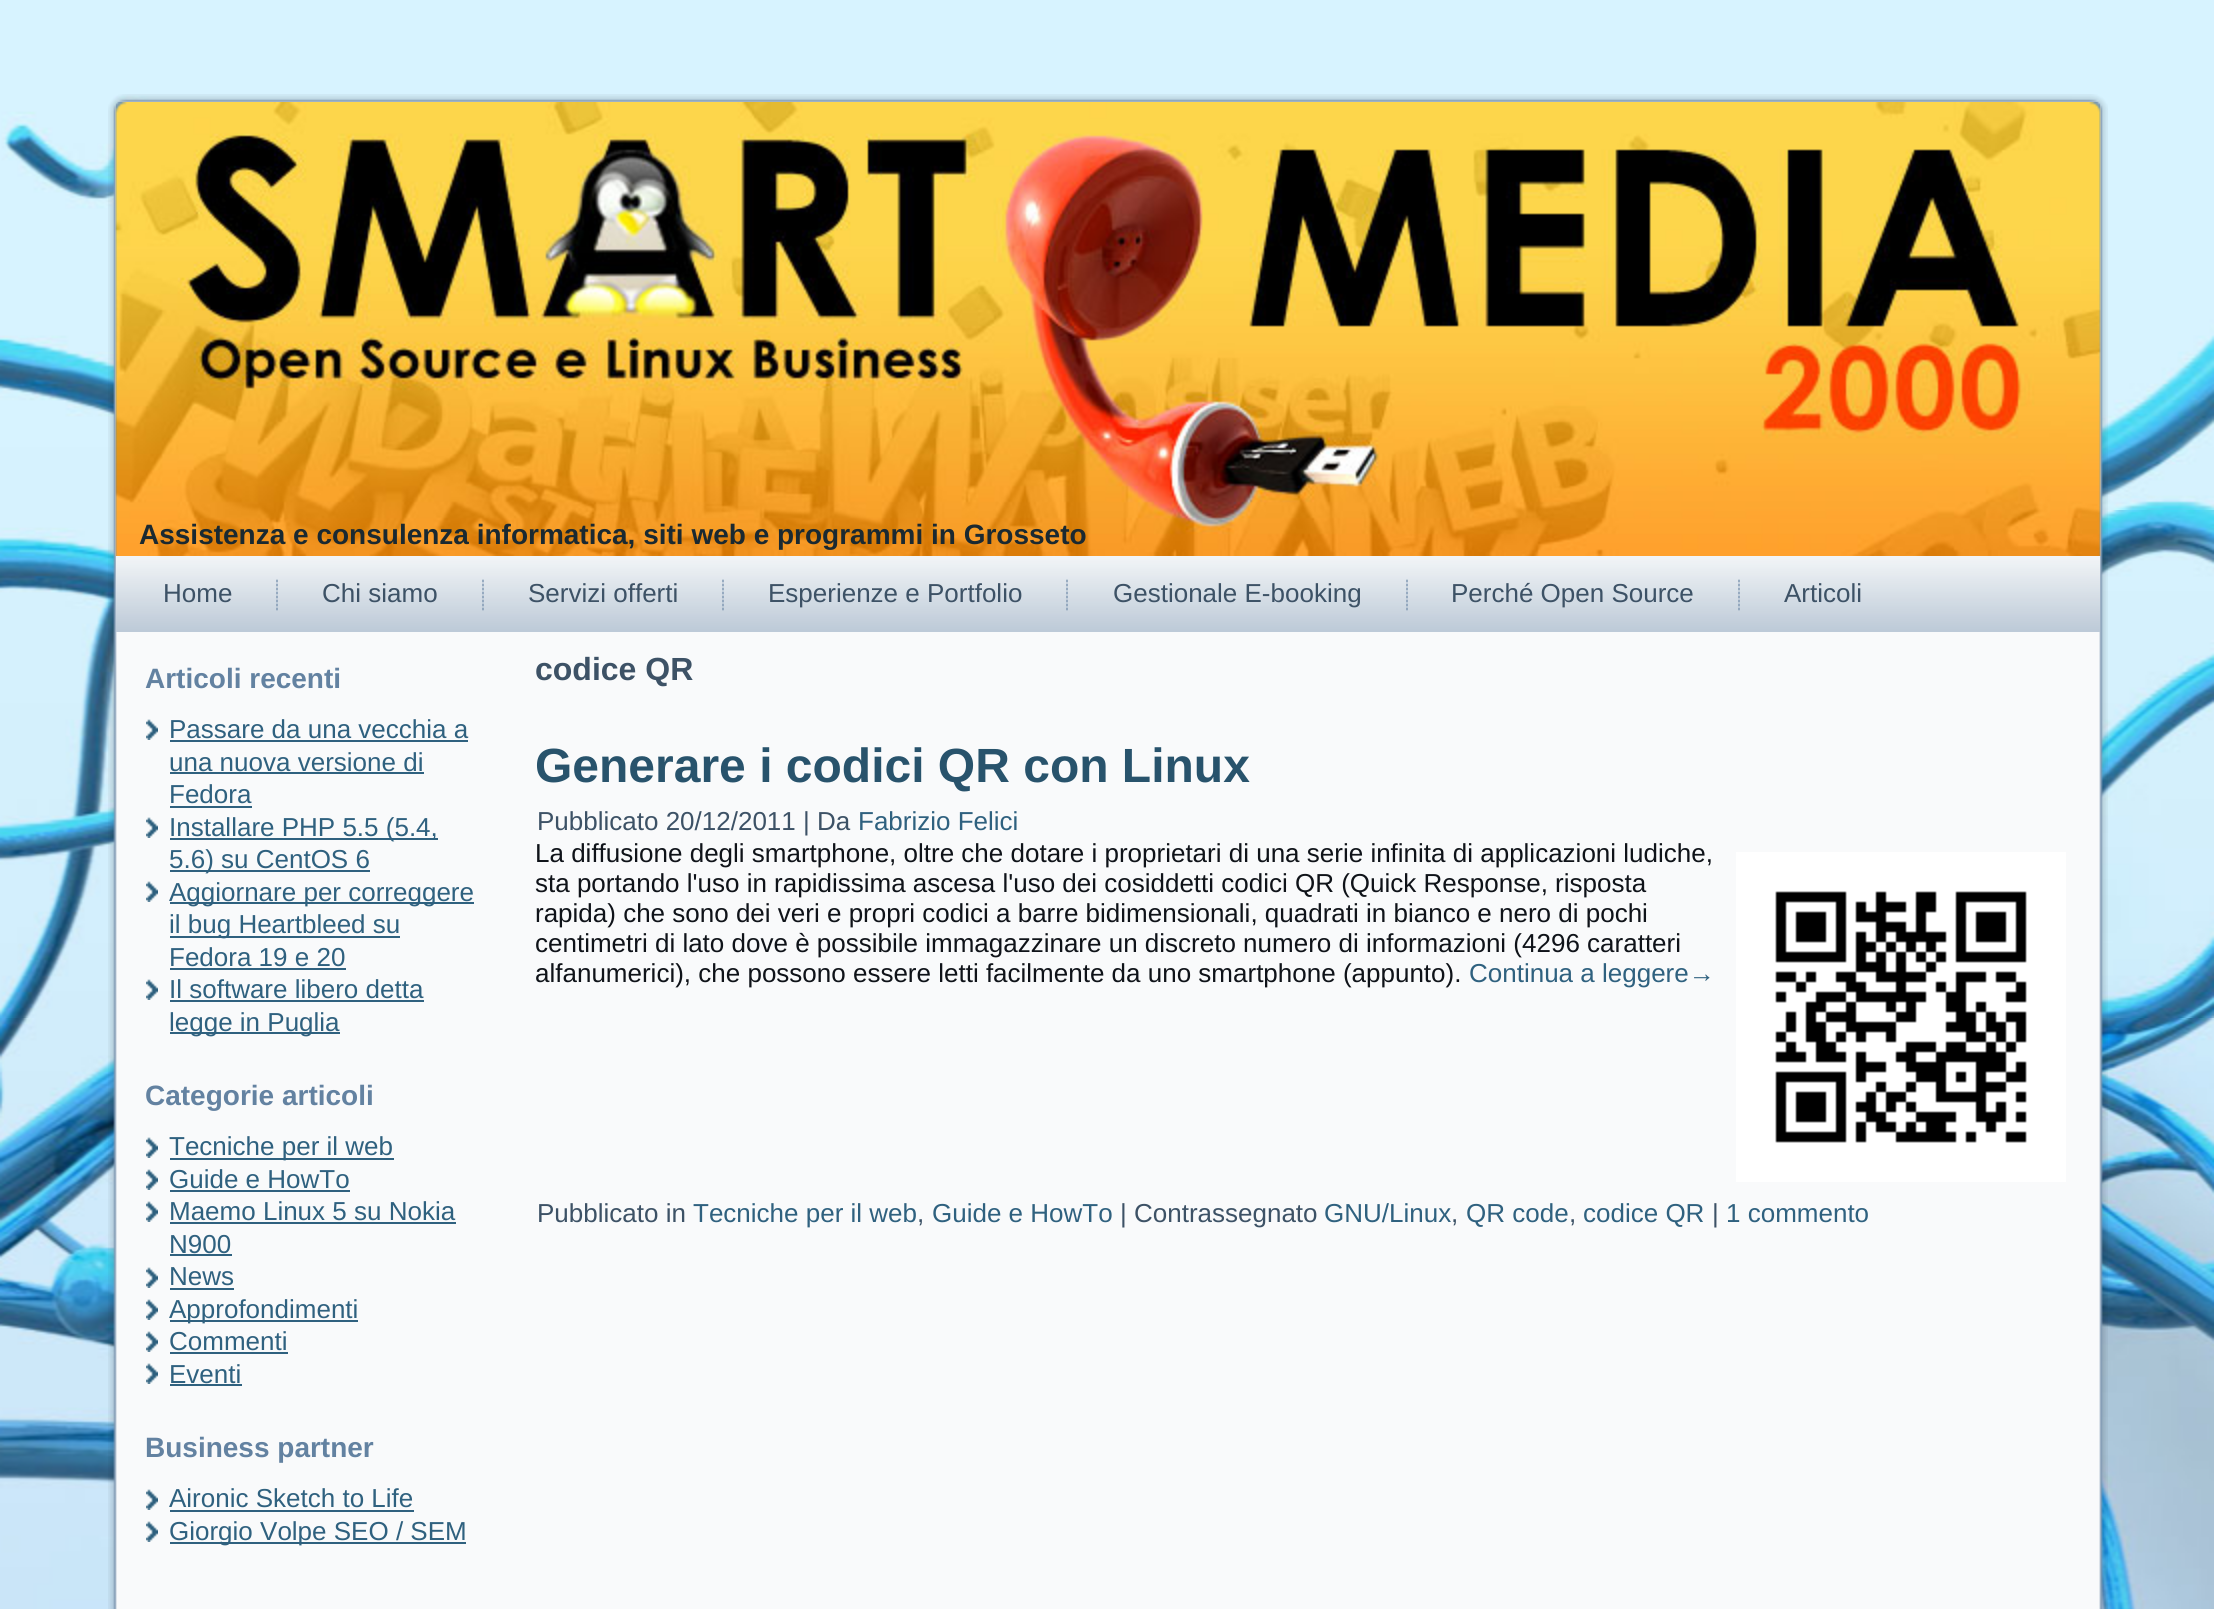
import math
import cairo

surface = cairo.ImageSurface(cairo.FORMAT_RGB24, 2214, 1609)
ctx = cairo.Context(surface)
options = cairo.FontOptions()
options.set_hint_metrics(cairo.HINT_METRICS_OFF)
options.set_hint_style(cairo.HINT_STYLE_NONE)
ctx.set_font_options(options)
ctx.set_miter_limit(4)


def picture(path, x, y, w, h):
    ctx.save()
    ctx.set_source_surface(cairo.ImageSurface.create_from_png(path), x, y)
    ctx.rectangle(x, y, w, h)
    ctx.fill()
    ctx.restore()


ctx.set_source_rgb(1, 1, 1)
ctx.paint()
picture("img1.png", 0, 0, 2214, 1609)
picture("img2.png", 108, 94, 36, 36)
picture("img3.png", 144, 94, 1928, 8)
picture("img4.png", 2072, 94, 36, 36)
picture("img5.png", 108, 130, 36, 1479)
picture("img13.png", 2072, 130, 36, 1479)
picture("img7.png", 116, 102, 1984, 454)
picture("img6.png", 115, 102, 1986, 454)
ctx.select_font_face("Liberation Sans", cairo.FONT_SLANT_NORMAL, cairo.FONT_WEIGHT_BOLD)
ctx.set_font_size(28)
ctx.set_source_rgb(0.102, 0.161, 0.192)
ctx.move_to(139, 544)
ctx.show_text("Assistenza e consulenza informatica, siti web e programmi in Grosseto")
picture("img8.png", 116, 556, 1974, 76)
picture("img9.png", 2090, 556, 10, 76)
ctx.select_font_face("Liberation Sans")
ctx.set_font_size(26)
ctx.set_source_rgb(0.239, 0.322, 0.4)
ctx.move_to(163, 602)
ctx.show_text("Home")
picture("img10.png", 276, 579, 2, 32)
ctx.move_to(322, 602)
ctx.show_text("Chi siamo")
picture("img10.png", 482, 579, 2, 32)
ctx.move_to(528, 602)
ctx.show_text("Servizi offerti")
picture("img10.png", 722, 579, 2, 32)
ctx.move_to(768, 602)
ctx.show_text("Esperienze e Portfolio")
picture("img10.png", 1066, 579, 2, 32)
ctx.move_to(1113, 602)
ctx.show_text("Gestionale E-booking")
picture("img10.png", 1406, 579, 2, 32)
ctx.move_to(1451, 602)
ctx.show_text("Perché Open Source")
picture("img10.png", 1738, 579, 2, 32)
ctx.move_to(1784, 602)
ctx.show_text("Articoli")
ctx.set_source_rgb(0.976, 0.98, 0.984)
ctx.rectangle(144, 632, 1928, 977)
ctx.fill()
ctx.select_font_face("Liberation Sans", cairo.FONT_SLANT_NORMAL, cairo.FONT_WEIGHT_BOLD)
ctx.set_font_size(28)
ctx.set_source_rgb(0.388, 0.51, 0.631)
ctx.move_to(145, 688)
ctx.show_text("Articoli recenti")
picture("img11.png", 146, 719, 12, 21)
ctx.select_font_face("Liberation Sans")
ctx.set_font_size(26)
ctx.set_source_rgb(0.184, 0.38, 0.498)
ctx.move_to(169, 738)
ctx.show_text("Passare da una vecchia a")
ctx.rectangle(170, 740, 298, 2)
ctx.fill()
ctx.move_to(169, 771)
ctx.show_text("una nuova versione di")
ctx.rectangle(170, 772, 254, 2)
ctx.fill()
ctx.move_to(169, 803)
ctx.show_text("Fedora")
ctx.rectangle(170, 806, 82, 2)
ctx.fill()
picture("img11.png", 146, 817, 12, 21)
ctx.rectangle(170, 838, 268, 2)
ctx.fill()
ctx.move_to(169, 836)
ctx.show_text("Installare PHP 5.5 (5.4,")
ctx.rectangle(170, 870, 200, 2)
ctx.fill()
ctx.move_to(169, 868)
ctx.show_text("5.6) su CentOS 6")
picture("img11.png", 146, 881, 12, 21)
ctx.rectangle(170, 902, 304, 2)
ctx.fill()
ctx.move_to(169, 901)
ctx.show_text("Aggiornare per correggere")
ctx.rectangle(170, 936, 230, 2)
ctx.fill()
ctx.move_to(169, 933)
ctx.show_text("il bug Heartbleed su")
ctx.move_to(169, 966)
ctx.show_text("Fedora 19 e 20")
ctx.rectangle(170, 968, 176, 2)
ctx.fill()
picture("img11.png", 146, 979, 12, 21)
ctx.move_to(169, 998)
ctx.show_text("Il software libero detta")
ctx.rectangle(170, 1000, 254, 2)
ctx.fill()
ctx.rectangle(170, 1032, 170, 2)
ctx.fill()
ctx.move_to(169, 1031)
ctx.show_text("legge in Puglia")
ctx.select_font_face("Liberation Sans", cairo.FONT_SLANT_NORMAL, cairo.FONT_WEIGHT_BOLD)
ctx.set_font_size(28)
ctx.set_source_rgb(0.388, 0.51, 0.631)
ctx.move_to(145, 1105)
ctx.show_text("Categorie articoli")
picture("img11.png", 146, 1137, 12, 21)
ctx.set_source_rgb(0.184, 0.38, 0.498)
ctx.rectangle(170, 1158, 224, 2)
ctx.fill()
ctx.select_font_face("Liberation Sans")
ctx.set_font_size(26)
ctx.move_to(169, 1155)
ctx.show_text("Tecniche per il web")
picture("img11.png", 146, 1169, 12, 21)
ctx.move_to(169, 1188)
ctx.show_text("Guide e HowTo")
ctx.rectangle(170, 1190, 180, 2)
ctx.fill()
picture("img11.png", 146, 1201, 12, 21)
ctx.move_to(169, 1220)
ctx.show_text("Maemo Linux 5 su Nokia")
ctx.rectangle(170, 1222, 286, 2)
ctx.fill()
ctx.move_to(169, 1253)
ctx.show_text("N900")
ctx.rectangle(170, 1254, 62, 2)
ctx.fill()
picture("img11.png", 146, 1267, 12, 21)
ctx.move_to(169, 1285)
ctx.show_text("News")
ctx.rectangle(170, 1288, 64, 2)
ctx.fill()
picture("img11.png", 146, 1299, 12, 21)
ctx.rectangle(170, 1320, 188, 2)
ctx.fill()
ctx.move_to(169, 1318)
ctx.show_text("Approfondimenti")
picture("img11.png", 146, 1331, 12, 21)
ctx.move_to(169, 1350)
ctx.show_text("Commenti")
ctx.rectangle(170, 1352, 118, 2)
ctx.fill()
picture("img11.png", 146, 1363, 12, 21)
ctx.move_to(169, 1383)
ctx.show_text("Eventi")
ctx.rectangle(170, 1384, 72, 2)
ctx.fill()
ctx.select_font_face("Liberation Sans", cairo.FONT_SLANT_NORMAL, cairo.FONT_WEIGHT_BOLD)
ctx.set_font_size(28)
ctx.set_source_rgb(0.388, 0.51, 0.631)
ctx.move_to(145, 1457)
ctx.show_text("Business partner")
picture("img11.png", 146, 1489, 12, 21)
ctx.select_font_face("Liberation Sans")
ctx.set_font_size(26)
ctx.set_source_rgb(0.184, 0.38, 0.498)
ctx.move_to(169, 1507)
ctx.show_text("Aironic Sketch to Life")
ctx.rectangle(170, 1510, 244, 2)
ctx.fill()
picture("img11.png", 146, 1521, 12, 21)
ctx.rectangle(170, 1542, 296, 2)
ctx.fill()
ctx.move_to(169, 1540)
ctx.show_text("Giorgio Volpe SEO / SEM")
ctx.select_font_face("Liberation Sans", cairo.FONT_SLANT_NORMAL, cairo.FONT_WEIGHT_BOLD)
ctx.set_font_size(32)
ctx.set_source_rgb(0.239, 0.322, 0.4)
ctx.move_to(535, 680)
ctx.show_text("codice QR")
ctx.set_font_size(48)
ctx.set_source_rgb(0.157, 0.325, 0.424)
ctx.move_to(535, 782)
ctx.show_text("Generare i codici QR con Linux")
ctx.select_font_face("Liberation Sans")
ctx.set_font_size(26)
ctx.set_source_rgb(0.239, 0.322, 0.4)
ctx.move_to(537, 830)
ctx.show_text("Pubblicato 20/12/2011 | Da")
ctx.set_source_rgb(0.184, 0.38, 0.498)
ctx.move_to(858, 830)
ctx.show_text("Fabrizio Felici")
ctx.set_source_rgb(0.059, 0.078, 0.098)
ctx.move_to(535, 862)
ctx.show_text("La diffusione degli smartphone, oltre che dotare i proprietari di una serie infinita di applicazioni ludiche,")
picture("img12.png", 1736, 852, 330, 330)
ctx.move_to(535, 892)
ctx.show_text("sta portando l'uso in rapidissima ascesa l'uso dei cosiddetti codici QR (Quick Response, risposta")
ctx.move_to(535, 922)
ctx.show_text("rapida) che sono dei veri e propri codici a barre bidimensionali, quadrati in bianco e nero di pochi")
ctx.move_to(535, 952)
ctx.show_text("centimetri di lato dove è possibile immagazzinare un discreto numero di informazioni (4296 caratteri")
ctx.move_to(535, 982)
ctx.show_text("alfanumerici), che possono essere letti facilmente da uno smartphone (appunto).")
ctx.set_source_rgb(0.184, 0.38, 0.498)
ctx.move_to(1469, 982)
ctx.show_text("Continua a leggere→")
ctx.set_source_rgb(0.239, 0.322, 0.4)
ctx.move_to(537, 1222)
ctx.show_text("Pubblicato in")
ctx.set_source_rgb(0.184, 0.38, 0.498)
ctx.move_to(693, 1222)
ctx.show_text("Tecniche per il web")
ctx.set_source_rgb(0.239, 0.322, 0.4)
ctx.move_to(917, 1222)
ctx.show_text(",")
ctx.set_source_rgb(0.184, 0.38, 0.498)
ctx.move_to(932, 1222)
ctx.show_text("Guide e HowTo")
ctx.set_source_rgb(0.239, 0.322, 0.4)
ctx.move_to(1120, 1222)
ctx.show_text("| Contrassegnato")
ctx.set_source_rgb(0.184, 0.38, 0.498)
ctx.move_to(1324, 1222)
ctx.show_text("GNU/Linux")
ctx.set_source_rgb(0.239, 0.322, 0.4)
ctx.move_to(1451, 1222)
ctx.show_text(",")
ctx.set_source_rgb(0.184, 0.38, 0.498)
ctx.move_to(1466, 1222)
ctx.show_text("QR code")
ctx.set_source_rgb(0.239, 0.322, 0.4)
ctx.move_to(1569, 1222)
ctx.show_text(",")
ctx.set_source_rgb(0.184, 0.38, 0.498)
ctx.move_to(1583, 1222)
ctx.show_text("codice QR")
ctx.set_source_rgb(0.239, 0.322, 0.4)
ctx.move_to(1712, 1222)
ctx.show_text("|")
ctx.set_source_rgb(0.184, 0.38, 0.498)
ctx.move_to(1726, 1222)
ctx.show_text("1 commento")
surface.write_to_png("page.png")
